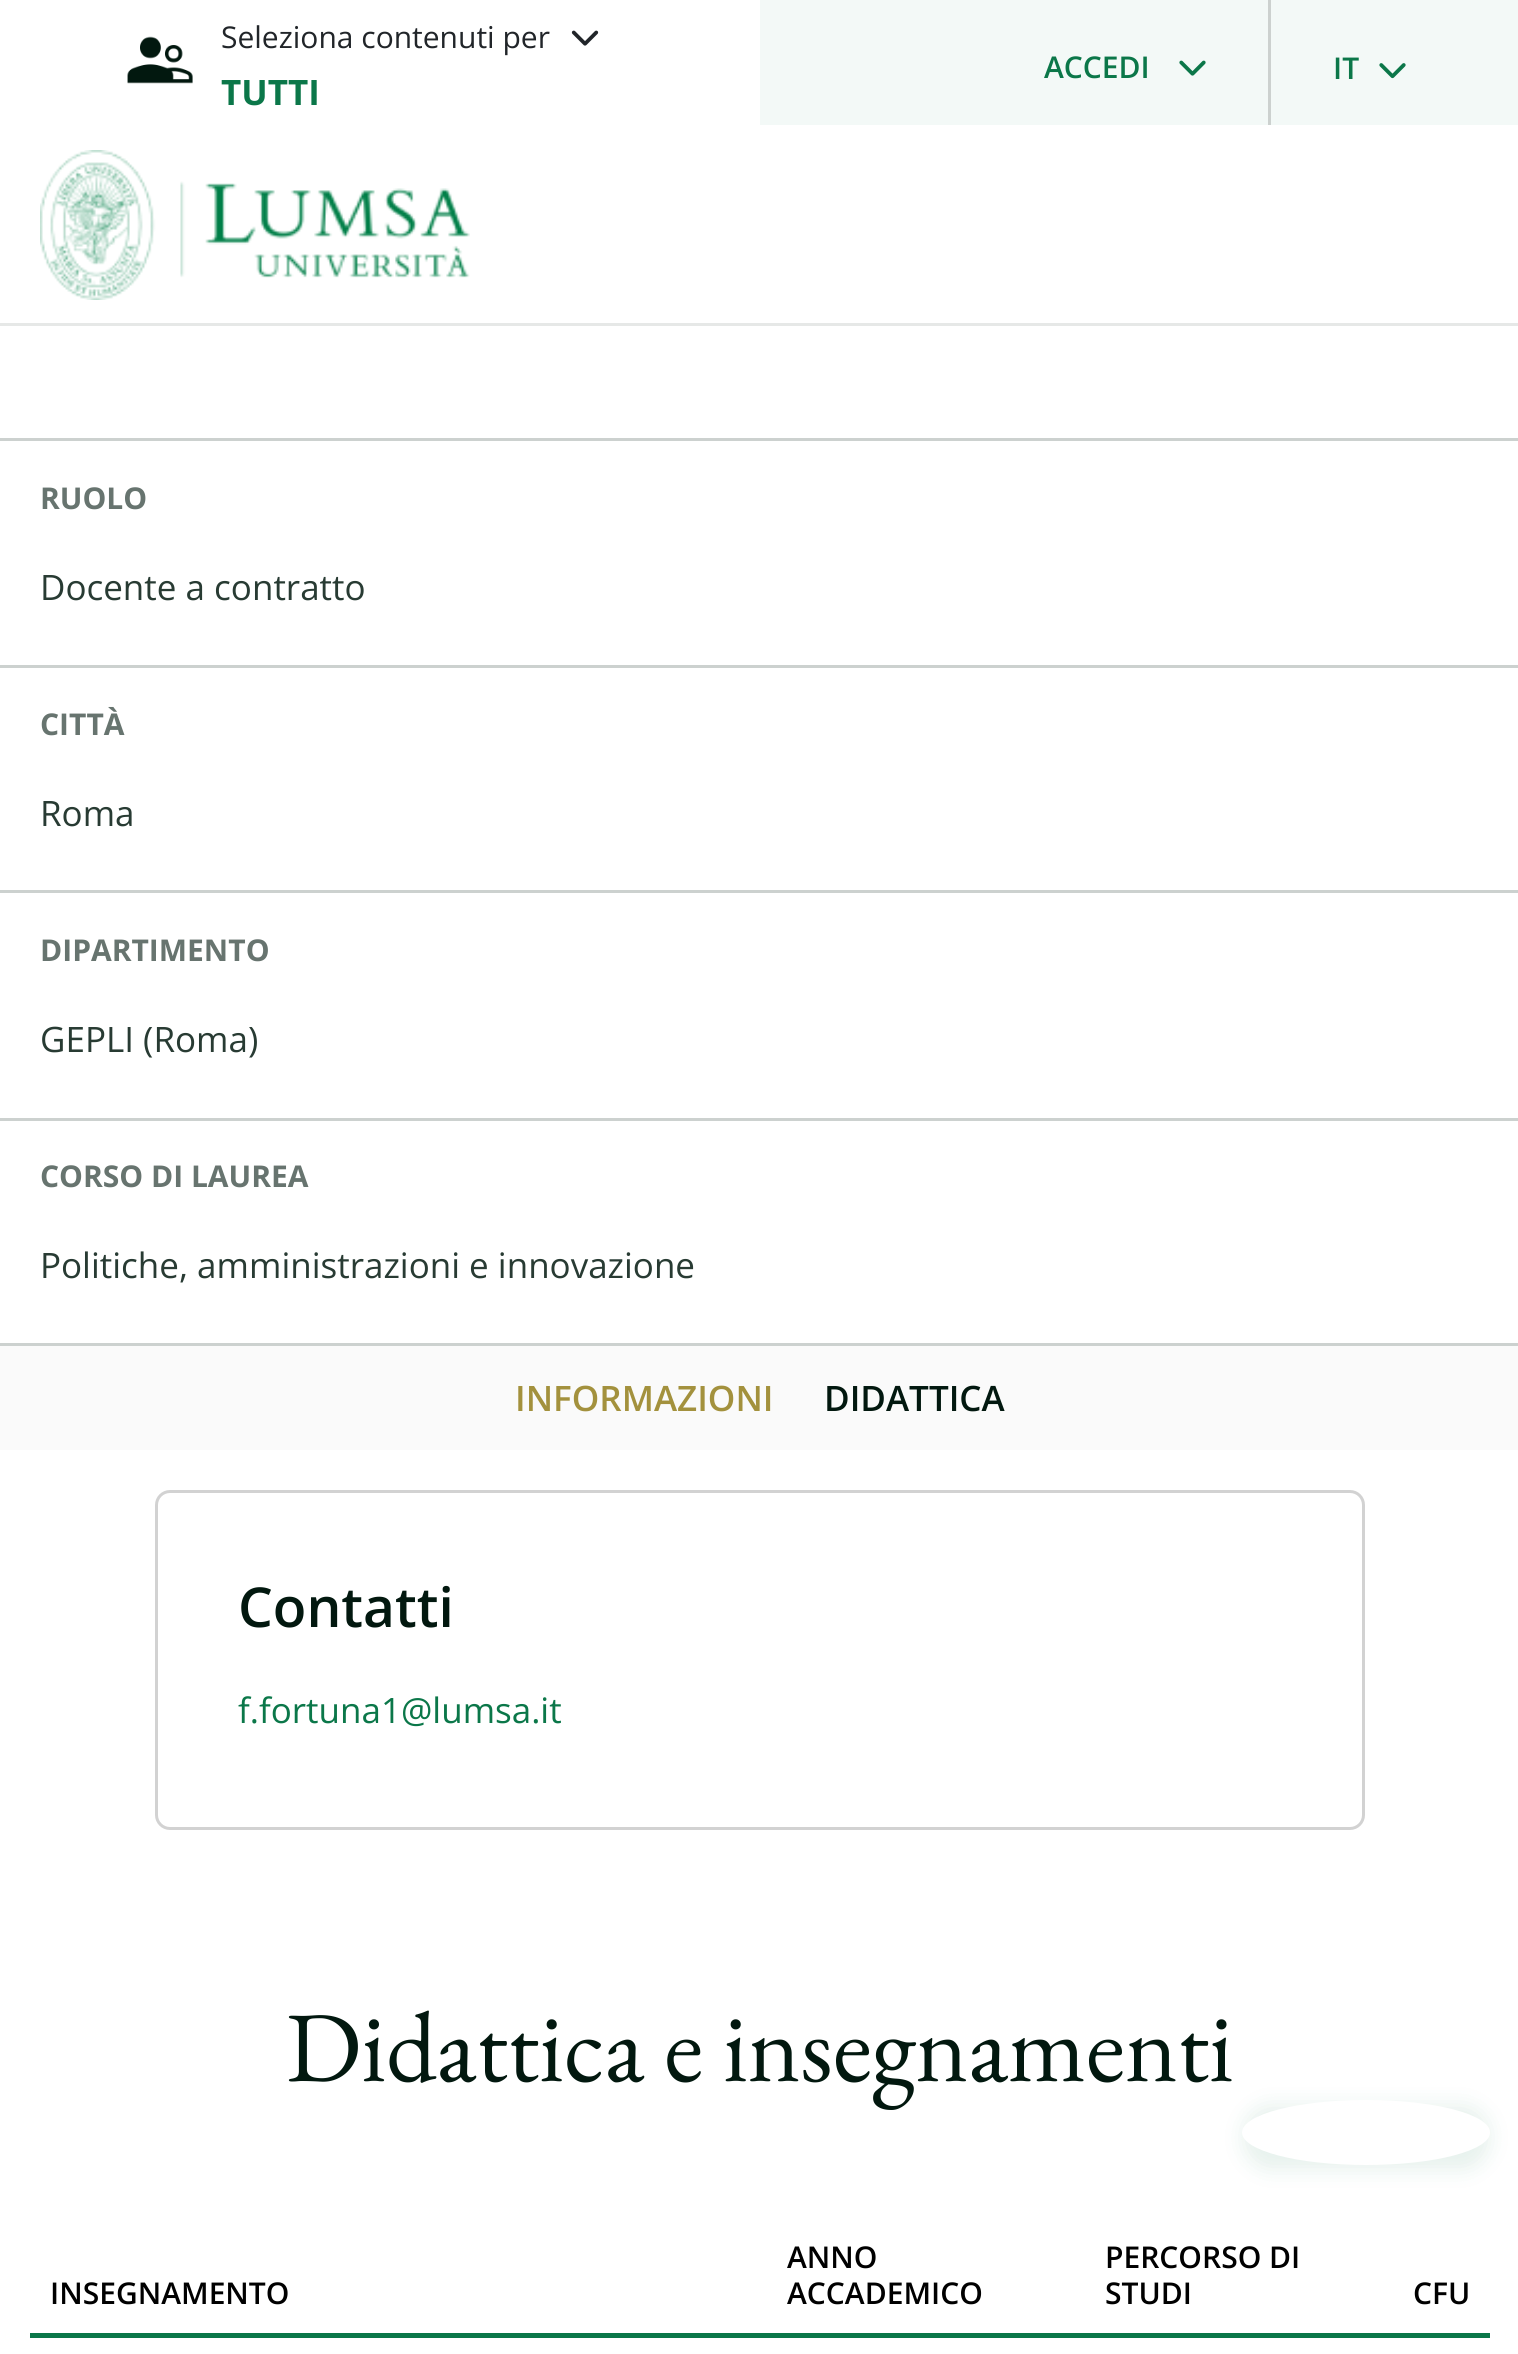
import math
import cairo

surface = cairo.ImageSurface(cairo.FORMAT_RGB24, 1518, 2354)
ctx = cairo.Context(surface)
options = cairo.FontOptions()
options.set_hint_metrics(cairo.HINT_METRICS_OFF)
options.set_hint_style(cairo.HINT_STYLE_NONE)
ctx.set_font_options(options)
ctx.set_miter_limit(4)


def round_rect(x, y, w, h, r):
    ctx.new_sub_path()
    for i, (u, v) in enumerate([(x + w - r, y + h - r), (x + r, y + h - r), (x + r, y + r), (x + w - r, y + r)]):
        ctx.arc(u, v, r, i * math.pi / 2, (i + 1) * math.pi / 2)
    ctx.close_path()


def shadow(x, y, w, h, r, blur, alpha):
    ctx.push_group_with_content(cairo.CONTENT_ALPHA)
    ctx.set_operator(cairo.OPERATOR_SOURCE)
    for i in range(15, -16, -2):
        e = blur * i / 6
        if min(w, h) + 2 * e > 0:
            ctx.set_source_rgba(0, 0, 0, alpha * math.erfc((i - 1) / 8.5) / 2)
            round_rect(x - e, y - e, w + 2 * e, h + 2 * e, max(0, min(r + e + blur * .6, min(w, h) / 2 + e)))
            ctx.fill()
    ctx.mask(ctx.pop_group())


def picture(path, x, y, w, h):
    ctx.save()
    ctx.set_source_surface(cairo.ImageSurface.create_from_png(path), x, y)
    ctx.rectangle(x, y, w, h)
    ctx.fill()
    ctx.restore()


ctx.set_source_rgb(1, 1, 1)
ctx.paint()
picture("img1.png", 127, 36, 66, 48)
ctx.select_font_face("Open Sans")
ctx.set_font_size(30)
ctx.set_source_rgb(0.129, 0.145, 0.161)
ctx.move_to(221, 48)
ctx.show_text("Seleziona contenuti per")
picture("img2.png", 571, 30, 28, 16)
ctx.select_font_face("Open Sans", cairo.FONT_SLANT_NORMAL, cairo.FONT_WEIGHT_BOLD)
ctx.set_font_size(35)
ctx.set_source_rgb(0.043, 0.467, 0.286)
ctx.move_to(221, 105)
ctx.show_text("TUTTI")
ctx.set_source_rgb(0.953, 0.973, 0.965)
ctx.rectangle(760, 0, 758, 125)
ctx.fill()
ctx.set_source_rgb(0.8, 0.82, 0.812)
ctx.rectangle(1268, 0, 3, 125)
ctx.fill()
ctx.select_font_face("Open Sans SemiBold")
ctx.set_font_size(30)
ctx.set_source_rgb(0.043, 0.467, 0.286)
ctx.move_to(1044, 78)
ctx.show_text("ACCEDI")
picture("img3.png", 1179, 60, 27, 16)
ctx.move_to(1333, 79)
ctx.show_text("IT")
picture("img4.png", 1379, 63, 27, 16)
ctx.set_source_rgb(0.902, 0.91, 0.906)
ctx.rectangle(0, 323, 1518, 3)
ctx.fill()
picture("img5.png", 40, 150, 430, 150)
ctx.set_source_rgb(0.8, 0.82, 0.812)
ctx.rectangle(0, 438, 1518, 3)
ctx.fill()
ctx.rectangle(0, 665, 1518, 3)
ctx.fill()
ctx.select_font_face("Open Sans", cairo.FONT_SLANT_NORMAL, cairo.FONT_WEIGHT_BOLD)
ctx.set_source_rgb(0.404, 0.455, 0.435)
ctx.move_to(40, 509)
ctx.show_text("RUOLO")
ctx.select_font_face("Open Sans")
ctx.set_font_size(35)
ctx.set_source_rgb(0.157, 0.231, 0.2)
ctx.move_to(40, 600)
ctx.show_text("Docente a contratto")
ctx.set_source_rgb(0.8, 0.82, 0.812)
ctx.rectangle(0, 890, 1518, 3)
ctx.fill()
ctx.select_font_face("Open Sans", cairo.FONT_SLANT_NORMAL, cairo.FONT_WEIGHT_BOLD)
ctx.set_font_size(30)
ctx.set_source_rgb(0.404, 0.455, 0.435)
ctx.move_to(40, 735)
ctx.show_text("CITTÀ")
ctx.select_font_face("Open Sans")
ctx.set_font_size(35)
ctx.set_source_rgb(0.157, 0.231, 0.2)
ctx.move_to(40, 826)
ctx.show_text("Roma")
ctx.set_source_rgb(0.8, 0.82, 0.812)
ctx.rectangle(0, 1118, 1518, 3)
ctx.fill()
ctx.select_font_face("Open Sans", cairo.FONT_SLANT_NORMAL, cairo.FONT_WEIGHT_BOLD)
ctx.set_font_size(30)
ctx.set_source_rgb(0.404, 0.455, 0.435)
ctx.move_to(40, 961)
ctx.show_text("DIPARTIMENTO")
ctx.select_font_face("Open Sans")
ctx.set_font_size(35)
ctx.set_source_rgb(0.157, 0.231, 0.2)
ctx.move_to(40, 1052)
ctx.show_text("GEPLI (Roma)")
ctx.set_source_rgb(0.8, 0.82, 0.812)
ctx.rectangle(0, 1343, 1518, 3)
ctx.fill()
ctx.select_font_face("Open Sans", cairo.FONT_SLANT_NORMAL, cairo.FONT_WEIGHT_BOLD)
ctx.set_font_size(30)
ctx.set_source_rgb(0.404, 0.455, 0.435)
ctx.move_to(40, 1187)
ctx.show_text("CORSO DI LAUREA")
ctx.select_font_face("Open Sans")
ctx.set_font_size(35)
ctx.set_source_rgb(0.157, 0.231, 0.2)
ctx.move_to(40, 1278)
ctx.show_text("Politiche, amministrazioni e innovazione")
ctx.set_source_rgb(0.98, 0.98, 0.98)
ctx.rectangle(0, 1346, 1518, 104)
ctx.fill()
ctx.select_font_face("Open Sans SemiBold")
ctx.set_source_rgb(0.639, 0.569, 0.239)
ctx.move_to(515, 1411)
ctx.show_text("INFORMAZIONI")
ctx.set_source_rgb(0.008, 0.094, 0.059)
ctx.move_to(824, 1411)
ctx.show_text("DIDATTICA")
round_rect(156.5, 1491.5, 1207, 337, 13.5)
ctx.set_source_rgb(0.824, 0.824, 0.824)
ctx.set_line_width(3)
ctx.stroke()
ctx.set_font_size(55)
ctx.set_source_rgb(0.008, 0.094, 0.059)
ctx.move_to(238, 1627)
ctx.show_text("Contatti")
ctx.select_font_face("Open Sans")
ctx.set_font_size(35)
ctx.set_source_rgb(0.043, 0.467, 0.286)
ctx.move_to(238, 1723)
ctx.show_text("f.fortuna1@lumsa.it")
ctx.select_font_face("EB Garamond")
ctx.set_font_size(100)
ctx.set_source_rgb(0.008, 0.094, 0.059)
ctx.move_to(286, 2081)
ctx.show_text("Didattica e insegnamenti")
ctx.set_source_rgb(0.043, 0.467, 0.286)
ctx.rectangle(30, 2333, 1460, 5)
ctx.fill()
ctx.select_font_face("Open Sans SemiBold")
ctx.set_font_size(30)
ctx.set_source_rgb(0, 0, 0)
ctx.move_to(50, 2304)
ctx.show_text("INSEGNAMENTO")
ctx.move_to(787, 2268)
ctx.show_text("ANNO")
ctx.move_to(787, 2304)
ctx.show_text("ACCADEMICO")
ctx.move_to(1105, 2268)
ctx.show_text("PERCORSO DI")
ctx.move_to(1105, 2304)
ctx.show_text("STUDI")
ctx.move_to(1413, 2304)
ctx.show_text("CFU")
ctx.set_source_rgb(0.043, 0.467, 0.286)
shadow(1243, 2105, 247, 65, 32.5, 10, 0.1)
ctx.set_source_rgb(1, 1, 1)
ctx.new_path()
ctx.move_to(1366, 2100)
ctx.curve_to(1434.5, 2100, 1490, 2114.5, 1490, 2132.5)
ctx.curve_to(1490, 2150.5, 1434.5, 2165, 1366, 2165)
ctx.curve_to(1297.5, 2165, 1242, 2150.5, 1242, 2132.5)
ctx.curve_to(1242, 2114.5, 1297.5, 2100, 1366, 2100)
ctx.close_path()
ctx.fill()
surface.write_to_png("page.png")
